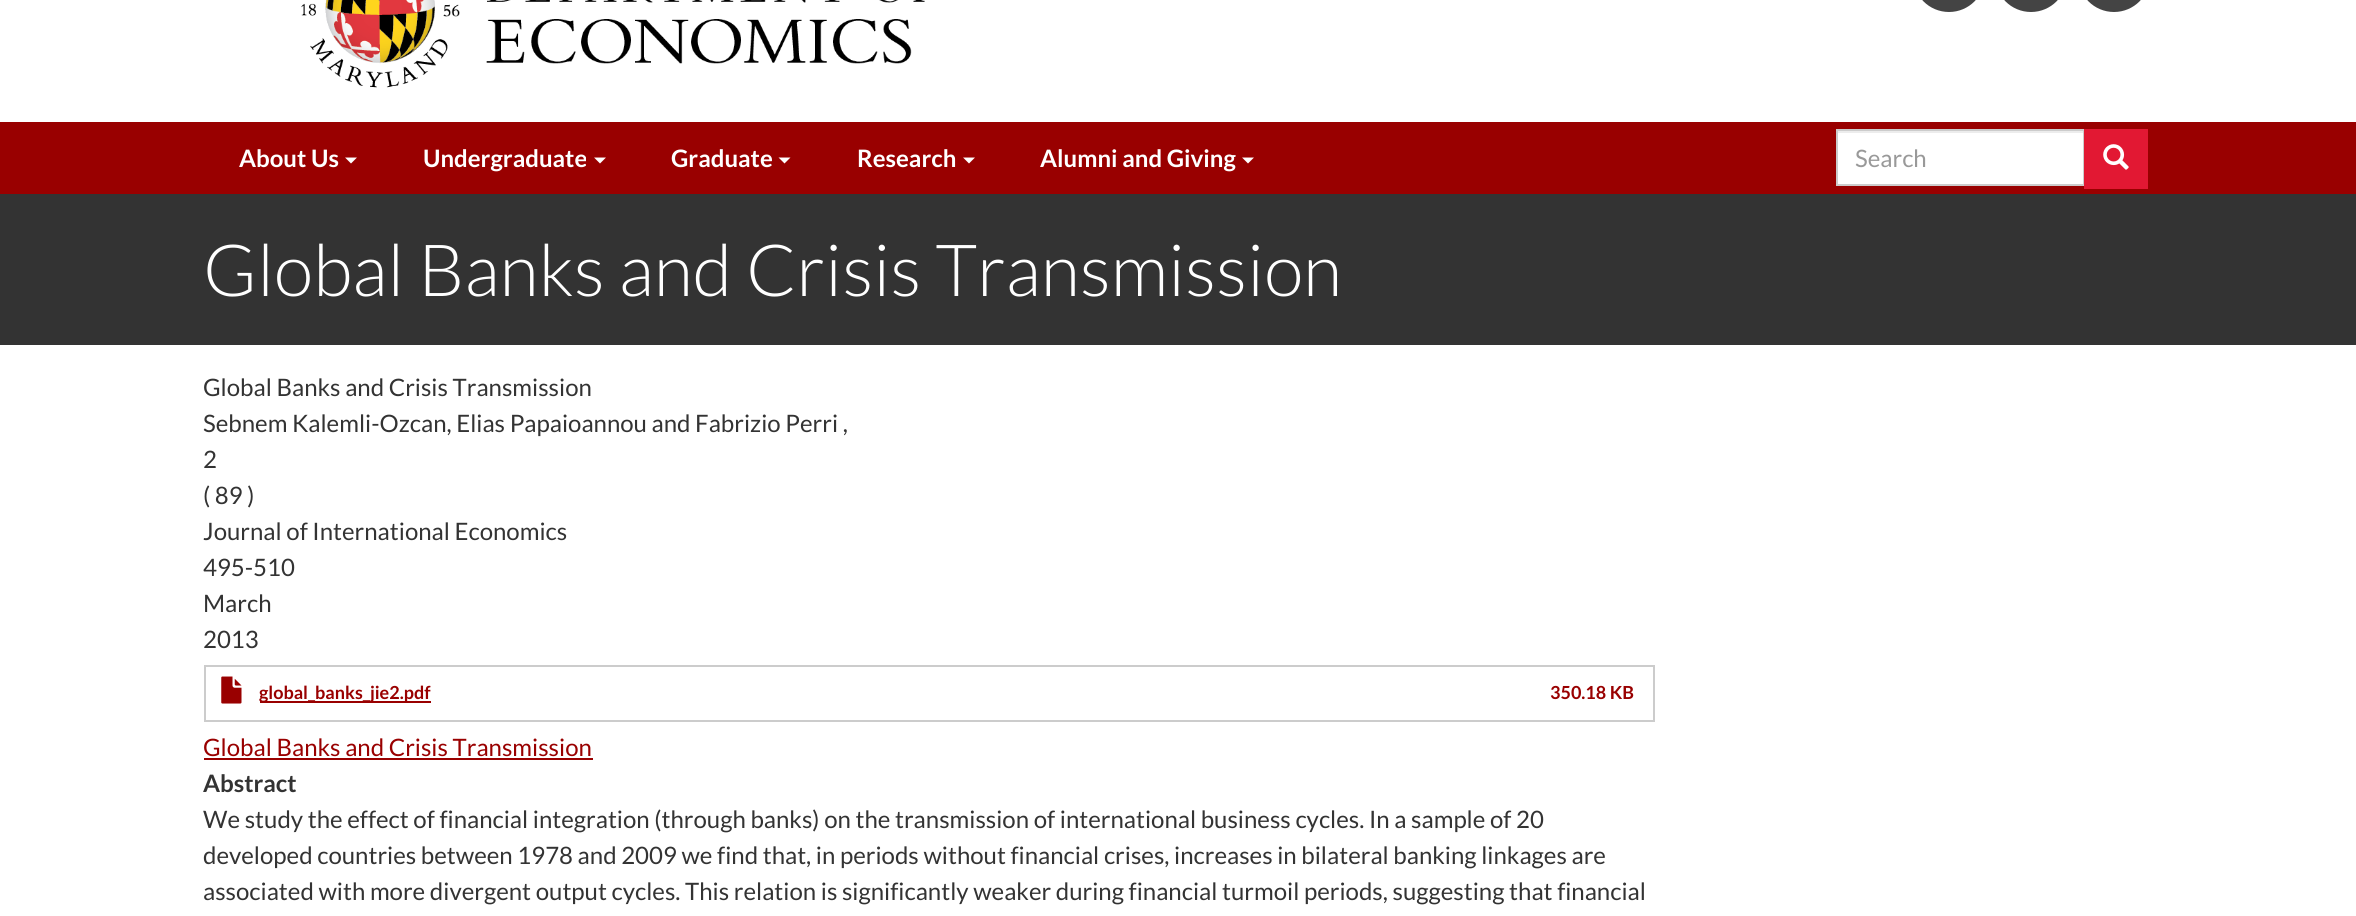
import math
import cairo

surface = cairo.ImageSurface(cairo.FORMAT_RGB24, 2356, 916)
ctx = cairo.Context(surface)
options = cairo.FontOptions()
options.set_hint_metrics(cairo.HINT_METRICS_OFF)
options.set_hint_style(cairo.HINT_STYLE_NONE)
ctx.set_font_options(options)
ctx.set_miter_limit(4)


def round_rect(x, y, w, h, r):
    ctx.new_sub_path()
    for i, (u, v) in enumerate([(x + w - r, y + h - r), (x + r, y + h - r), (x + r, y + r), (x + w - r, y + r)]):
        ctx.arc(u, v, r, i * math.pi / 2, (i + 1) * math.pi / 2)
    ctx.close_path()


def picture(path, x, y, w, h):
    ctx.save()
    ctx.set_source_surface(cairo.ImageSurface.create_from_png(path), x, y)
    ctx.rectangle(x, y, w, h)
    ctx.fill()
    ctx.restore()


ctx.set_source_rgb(1, 1, 1)
ctx.paint()
ctx.set_source_rgb(0.267, 0.267, 0.267)
round_rect(1913, -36, 72, 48, 36)
ctx.fill()
round_rect(1995, -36, 72, 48, 36)
ctx.fill()
round_rect(2078, -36, 72, 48, 36)
ctx.fill()
picture("img1.png", 301, 0, 624, 88)
ctx.set_source_rgb(0.6, 0, 0)
ctx.rectangle(0, 122, 2356, 72)
ctx.fill()
ctx.select_font_face("Lato", cairo.FONT_SLANT_NORMAL, cairo.FONT_WEIGHT_BOLD)
ctx.set_font_size(24)
ctx.set_source_rgb(1, 1, 1)
ctx.move_to(239, 167)
ctx.show_text("About Us")
ctx.new_path()
ctx.move_to(345, 157.5)
ctx.line_to(357, 157.5)
ctx.line_to(351, 163.5)
ctx.close_path()
ctx.fill()
ctx.move_to(423, 167)
ctx.show_text("Undergraduate")
ctx.new_path()
ctx.move_to(594, 157.5)
ctx.line_to(606, 157.5)
ctx.line_to(600, 163.5)
ctx.close_path()
ctx.fill()
ctx.move_to(671, 167)
ctx.show_text("Graduate")
ctx.new_path()
ctx.move_to(778.5, 157.5)
ctx.line_to(790.5, 157.5)
ctx.line_to(784.5, 163.5)
ctx.close_path()
ctx.fill()
ctx.move_to(857, 167)
ctx.show_text("Research")
ctx.new_path()
ctx.move_to(963, 157.5)
ctx.line_to(975, 157.5)
ctx.line_to(969, 163.5)
ctx.close_path()
ctx.fill()
ctx.move_to(1040, 167)
ctx.show_text("Alumni and Giving")
ctx.new_path()
ctx.move_to(1242, 157.5)
ctx.line_to(1254, 157.5)
ctx.line_to(1248, 163.5)
ctx.close_path()
ctx.fill()
ctx.rectangle(1838, 133, 245, 51)
ctx.fill()
ctx.set_source_rgb(0.925, 0.925, 0.925)
ctx.rectangle(1838, 131, 246, 2)
ctx.fill()
ctx.rectangle(1837, 130, 247, 55)
ctx.set_source_rgb(0.8, 0.8, 0.8)
ctx.stroke()
ctx.select_font_face("Lato")
ctx.set_source_rgb(0.6, 0.6, 0.6)
ctx.move_to(1855, 167)
ctx.show_text("Search")
ctx.set_source_rgb(0.886, 0.094, 0.2)
ctx.rectangle(2084, 129, 64, 60)
ctx.fill()
picture("img2.png", 2103, 144, 26, 26)
ctx.set_source_rgb(0.2, 0.2, 0.2)
ctx.rectangle(0, 194, 2356, 151)
ctx.fill()
ctx.select_font_face("Lato Light")
ctx.set_font_size(72)
ctx.set_source_rgb(1, 1, 1)
ctx.move_to(203, 296)
ctx.show_text("Global Banks and Crisis Transmission")
ctx.select_font_face("Lato")
ctx.set_font_size(24)
ctx.set_source_rgb(0.2, 0.2, 0.2)
ctx.move_to(203, 396)
ctx.show_text("Global Banks and Crisis Transmission")
ctx.move_to(203, 432)
ctx.show_text("Sebnem Kalemli-Ozcan, Elias Papaioannou and Fabrizio Perri ,")
ctx.move_to(203, 468)
ctx.show_text("2")
ctx.move_to(203, 504)
ctx.show_text("( 89 )")
ctx.move_to(203, 540)
ctx.show_text("Journal of International Economics")
ctx.move_to(203, 576)
ctx.show_text("495-510")
ctx.move_to(203, 612)
ctx.show_text("March")
ctx.move_to(203, 648)
ctx.show_text("2013")
ctx.set_source_rgb(0.8, 0.8, 0.8)
ctx.rectangle(204, 665, 1451, 2)
ctx.fill()
ctx.rectangle(204, 720, 1328, 2)
ctx.fill()
ctx.rectangle(204, 665, 2, 57)
ctx.fill()
picture("img3.png", 221, 676, 21, 28)
ctx.set_source_rgb(0.6, 0, 0)
ctx.rectangle(260, 701, 171, 2)
ctx.fill()
ctx.select_font_face("Lato", cairo.FONT_SLANT_NORMAL, cairo.FONT_WEIGHT_BOLD)
ctx.set_font_size(18)
ctx.move_to(259, 699)
ctx.show_text("global_banks_jie2.pdf")
ctx.set_source_rgb(0.8, 0.8, 0.8)
ctx.rectangle(1653, 665, 2, 57)
ctx.fill()
ctx.rectangle(1532, 720, 123, 2)
ctx.fill()
ctx.set_source_rgb(0.6, 0, 0)
ctx.move_to(1550, 699)
ctx.show_text("350.18 KB")
ctx.select_font_face("Lato")
ctx.set_font_size(24)
ctx.move_to(203, 756)
ctx.show_text("Global Banks and Crisis Transmission")
ctx.rectangle(204, 758, 389, 2)
ctx.fill()
ctx.select_font_face("Lato", cairo.FONT_SLANT_NORMAL, cairo.FONT_WEIGHT_BOLD)
ctx.set_source_rgb(0.2, 0.2, 0.2)
ctx.move_to(203, 792)
ctx.show_text("Abstract")
ctx.select_font_face("Lato")
ctx.move_to(203, 828)
ctx.show_text("We study the effect of financial integration (through banks) on the transmission of international business cycles. In a sample of 20")
ctx.move_to(203, 864)
ctx.show_text("developed countries between 1978 and 2009 we find that, in periods without financial crises, increases in bilateral banking linkages are")
ctx.move_to(203, 900)
ctx.show_text("associated with more divergent output cycles. This relation is significantly weaker during financial turmoil periods, suggesting that financial")
surface.write_to_png("page.png")
